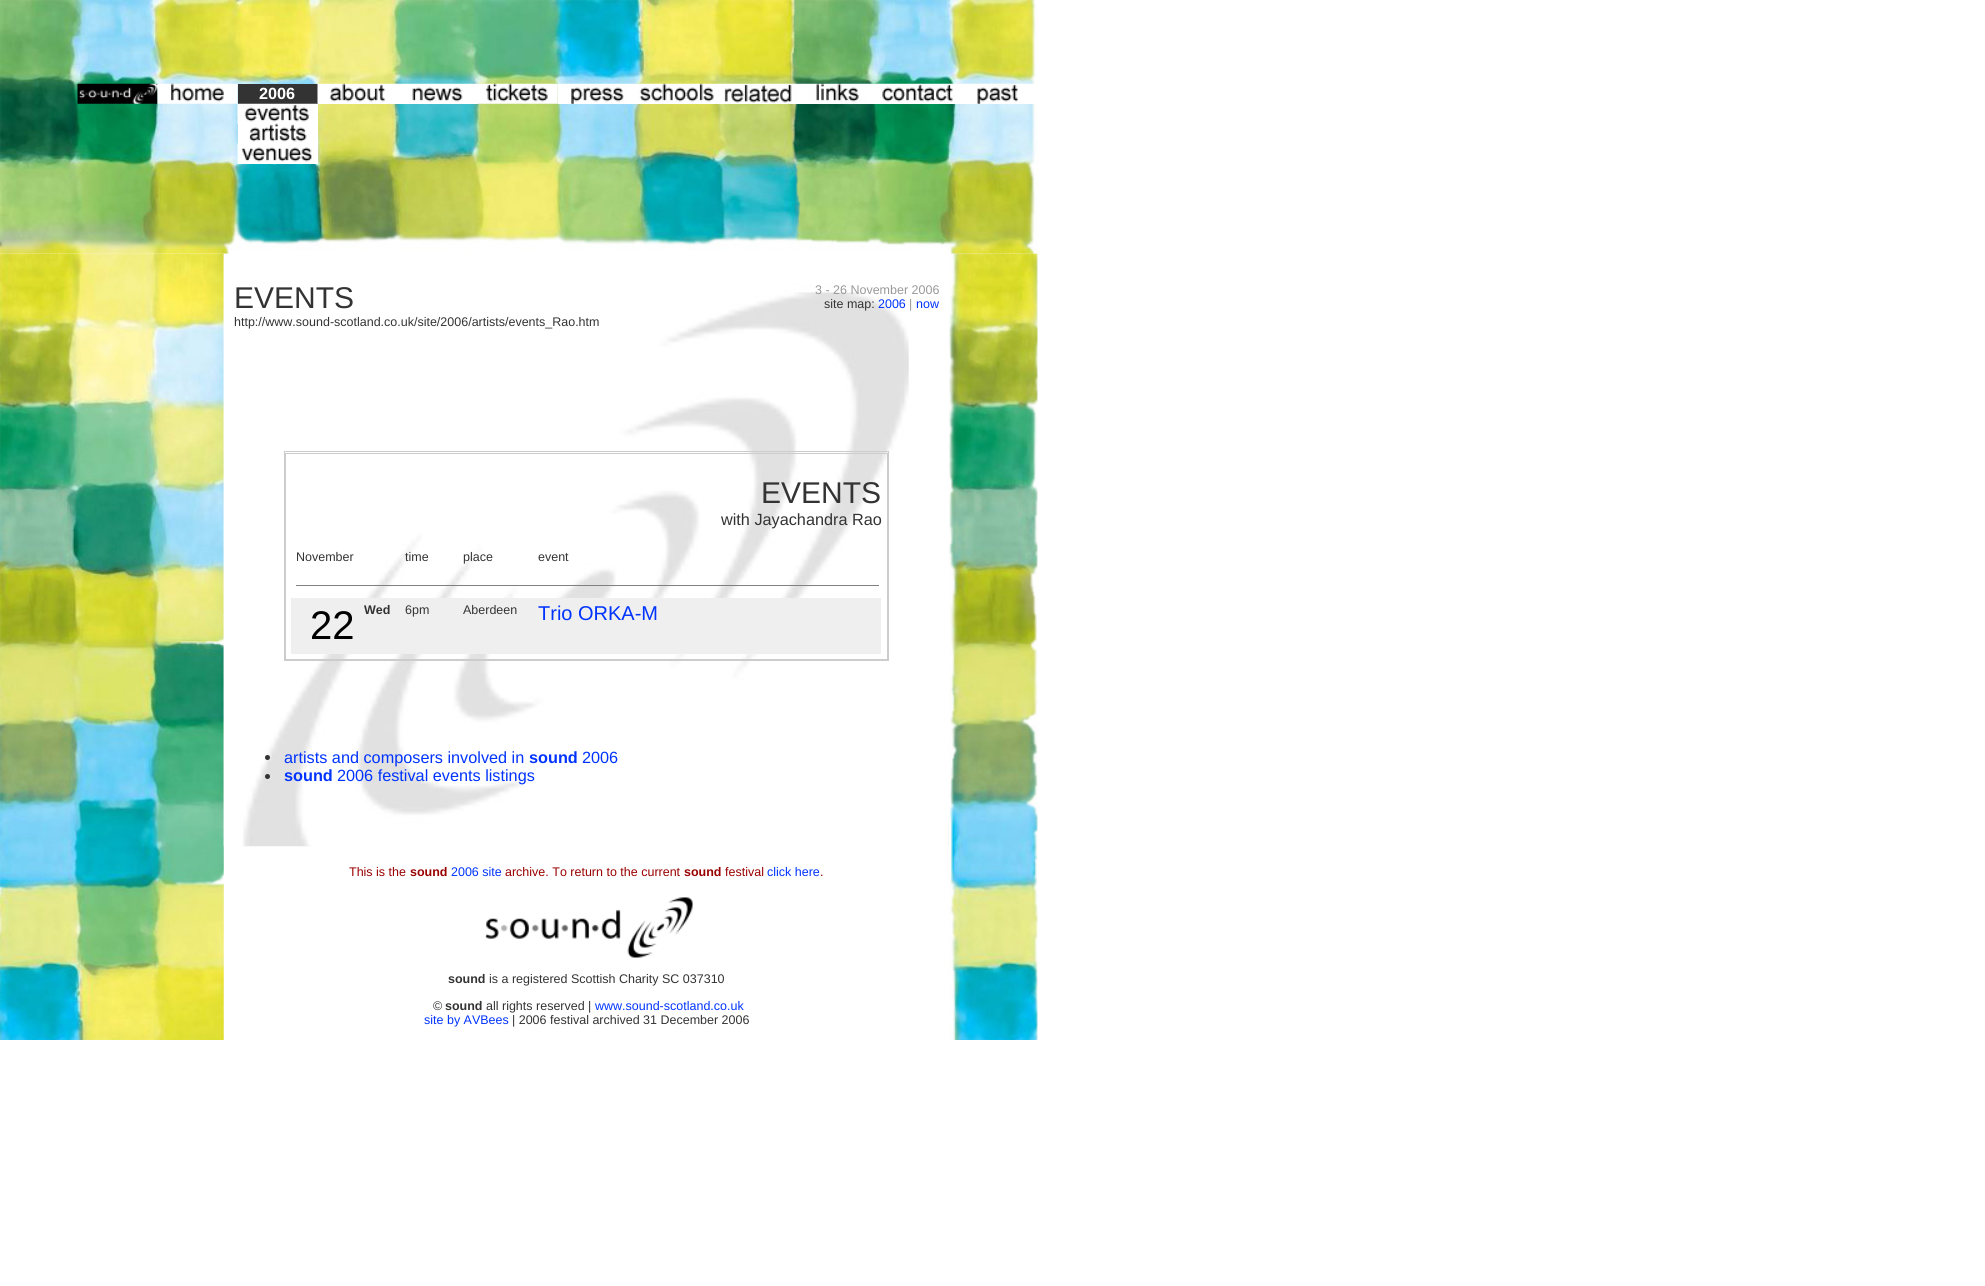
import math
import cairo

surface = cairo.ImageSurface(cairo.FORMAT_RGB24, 1985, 1286)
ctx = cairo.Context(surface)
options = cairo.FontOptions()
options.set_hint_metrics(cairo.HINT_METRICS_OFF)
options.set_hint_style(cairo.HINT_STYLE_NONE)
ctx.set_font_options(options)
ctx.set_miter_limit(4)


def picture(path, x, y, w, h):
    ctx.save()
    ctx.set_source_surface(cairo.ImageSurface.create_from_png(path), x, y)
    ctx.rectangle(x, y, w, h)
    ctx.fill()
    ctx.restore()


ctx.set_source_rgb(1, 1, 1)
ctx.paint()
picture("img1.png", 0, 0, 1038, 254)
picture("img2.png", 77, 83, 81, 21)
ctx.set_source_rgb(1, 1, 1)
ctx.rectangle(318, 84, 160, 20)
ctx.fill()
ctx.set_source_rgb(0.2, 0.2, 0.2)
ctx.rectangle(238, 84, 80, 20)
ctx.fill()
picture("img4.png", 317, 83, 81, 21)
ctx.set_source_rgb(1, 1, 1)
ctx.rectangle(238, 104, 80, 60)
ctx.fill()
picture("img13.png", 237, 103, 81, 21)
picture("img3.png", 157, 83, 81, 21)
picture("img5.png", 397, 83, 81, 19)
picture("img6.png", 477, 83, 81, 21)
ctx.rectangle(558, 84, 479, 20)
ctx.fill()
picture("img7.png", 557, 83, 81, 21)
ctx.select_font_face("Liberation Sans", cairo.FONT_SLANT_NORMAL, cairo.FONT_WEIGHT_BOLD)
ctx.set_font_size(16.25)
ctx.move_to(259, 99)
ctx.show_text("2006")
picture("img8.png", 637, 83, 81, 19)
picture("img9.png", 717, 83, 81, 20)
picture("img10.png", 797, 83, 81, 19)
picture("img11.png", 877, 83, 80, 19)
picture("img12.png", 958, 83, 76, 21)
picture("img14.png", 249, 123, 58, 19)
picture("img15.png", 237, 143, 75, 21)
picture("img16.png", 0, 253, 224, 787)
picture("img18.png", 948, 253, 90, 787)
picture("img17.png", 223, 253, 726, 594)
ctx.select_font_face("Liberation Sans")
ctx.set_font_size(30)
ctx.set_source_rgb(0.2, 0.2, 0.2)
ctx.move_to(234, 308)
ctx.show_text("EVENTS")
ctx.set_font_size(12.5)
ctx.move_to(234, 326)
ctx.show_text("http://www.sound-scotland.co.uk/site/2006/artists/events_Rao.htm")
ctx.set_source_rgb(0.6, 0.6, 0.6)
ctx.move_to(815, 294)
ctx.show_text("3 - 26 November 2006")
ctx.set_source_rgb(0.2, 0.2, 0.2)
ctx.move_to(824, 308)
ctx.show_text("site map:")
ctx.set_source_rgb(0, 0.2, 1)
ctx.move_to(878, 308)
ctx.show_text("2006")
ctx.set_source_rgb(0.6, 0.6, 0.6)
ctx.move_to(909, 308)
ctx.show_text("|")
ctx.set_source_rgb(0, 0.2, 1)
ctx.move_to(916, 308)
ctx.show_text("now")
ctx.rectangle(284.5, 451.5, 604, 209)
ctx.set_source_rgb(0.8, 0.8, 0.8)
ctx.set_line_width(1)
ctx.stroke()
ctx.rectangle(285.5, 453.5, 602, 206)
ctx.stroke()
ctx.set_font_size(30)
ctx.set_source_rgb(0.2, 0.2, 0.2)
ctx.move_to(761, 503)
ctx.show_text("EVENTS")
ctx.set_font_size(16.25)
ctx.move_to(721, 525)
ctx.show_text("with Jayachandra Rao")
ctx.set_font_size(12.5)
ctx.move_to(296, 561)
ctx.show_text("November")
ctx.move_to(405, 561)
ctx.show_text("time")
ctx.move_to(463, 561)
ctx.show_text("place")
ctx.move_to(538, 561)
ctx.show_text("event")
ctx.set_source_rgb(0.502, 0.502, 0.502)
ctx.rectangle(296, 585, 583, 1)
ctx.fill()
ctx.set_source_rgb(0.937, 0.937, 0.937)
ctx.rectangle(291, 598, 590, 56)
ctx.fill()
ctx.set_font_size(40)
ctx.set_source_rgb(0, 0, 0)
ctx.move_to(310, 639)
ctx.show_text("22")
ctx.select_font_face("Liberation Sans", cairo.FONT_SLANT_NORMAL, cairo.FONT_WEIGHT_BOLD)
ctx.set_font_size(12.5)
ctx.set_source_rgb(0.2, 0.2, 0.2)
ctx.move_to(364, 614)
ctx.show_text("Wed")
ctx.select_font_face("Liberation Sans")
ctx.move_to(405, 614)
ctx.show_text("6pm")
ctx.move_to(463, 614)
ctx.show_text("Aberdeen")
ctx.set_font_size(20)
ctx.set_source_rgb(0, 0.2, 1)
ctx.move_to(538, 620)
ctx.show_text("Trio ORKA-M")
ctx.set_source_rgb(0.2, 0.2, 0.2)
ctx.new_path()
ctx.arc(267.5, 757.5, 2.5, 0, 2 * math.pi)
ctx.fill()
ctx.set_font_size(16.25)
ctx.set_source_rgb(0, 0.2, 1)
ctx.move_to(284, 763)
ctx.show_text("artists and composers involved in")
ctx.select_font_face("Liberation Sans", cairo.FONT_SLANT_NORMAL, cairo.FONT_WEIGHT_BOLD)
ctx.move_to(529, 763)
ctx.show_text("sound")
ctx.select_font_face("Liberation Sans")
ctx.move_to(582, 763)
ctx.show_text("2006")
ctx.set_source_rgb(0.2, 0.2, 0.2)
ctx.new_path()
ctx.arc(267.5, 776.5, 2.5, 0, 2 * math.pi)
ctx.fill()
ctx.select_font_face("Liberation Sans", cairo.FONT_SLANT_NORMAL, cairo.FONT_WEIGHT_BOLD)
ctx.set_source_rgb(0, 0.2, 1)
ctx.move_to(284, 781)
ctx.show_text("sound")
ctx.select_font_face("Liberation Sans")
ctx.move_to(337, 781)
ctx.show_text("2006 festival events listings")
ctx.set_font_size(12.5)
ctx.set_source_rgb(0.6, 0, 0)
ctx.move_to(349, 876)
ctx.show_text("This is the")
ctx.select_font_face("Liberation Sans", cairo.FONT_SLANT_NORMAL, cairo.FONT_WEIGHT_BOLD)
ctx.move_to(410, 876)
ctx.show_text("sound")
ctx.select_font_face("Liberation Sans")
ctx.set_source_rgb(0, 0.2, 1)
ctx.move_to(451, 876)
ctx.show_text("2006 site")
ctx.set_source_rgb(0.6, 0, 0)
ctx.move_to(505, 876)
ctx.show_text("archive. To return to the current")
ctx.select_font_face("Liberation Sans", cairo.FONT_SLANT_NORMAL, cairo.FONT_WEIGHT_BOLD)
ctx.move_to(684, 876)
ctx.show_text("sound")
ctx.select_font_face("Liberation Sans")
ctx.move_to(725, 876)
ctx.show_text("festival")
ctx.set_source_rgb(0, 0.2, 1)
ctx.move_to(767, 876)
ctx.show_text("click here")
ctx.set_source_rgb(0.6, 0, 0)
ctx.move_to(820, 876)
ctx.show_text(".")
picture("img19.png", 485, 897, 208, 61)
ctx.select_font_face("Liberation Sans", cairo.FONT_SLANT_NORMAL, cairo.FONT_WEIGHT_BOLD)
ctx.set_source_rgb(0.2, 0.2, 0.2)
ctx.move_to(448, 983)
ctx.show_text("sound")
ctx.select_font_face("Liberation Sans")
ctx.move_to(489, 983)
ctx.show_text("is a registered Scottish Charity SC 037310")
ctx.move_to(433, 1010)
ctx.show_text("©")
ctx.select_font_face("Liberation Sans", cairo.FONT_SLANT_NORMAL, cairo.FONT_WEIGHT_BOLD)
ctx.move_to(445, 1010)
ctx.show_text("sound")
ctx.select_font_face("Liberation Sans")
ctx.move_to(486, 1010)
ctx.show_text("all rights reserved |")
ctx.set_source_rgb(0, 0.2, 1)
ctx.move_to(595, 1010)
ctx.show_text("www.sound-scotland.co.uk")
ctx.move_to(424, 1024)
ctx.show_text("site by AVBees")
ctx.set_source_rgb(0.2, 0.2, 0.2)
ctx.move_to(512, 1024)
ctx.show_text("| 2006 festival archived 31 December 2006")
surface.write_to_png("page.png")
